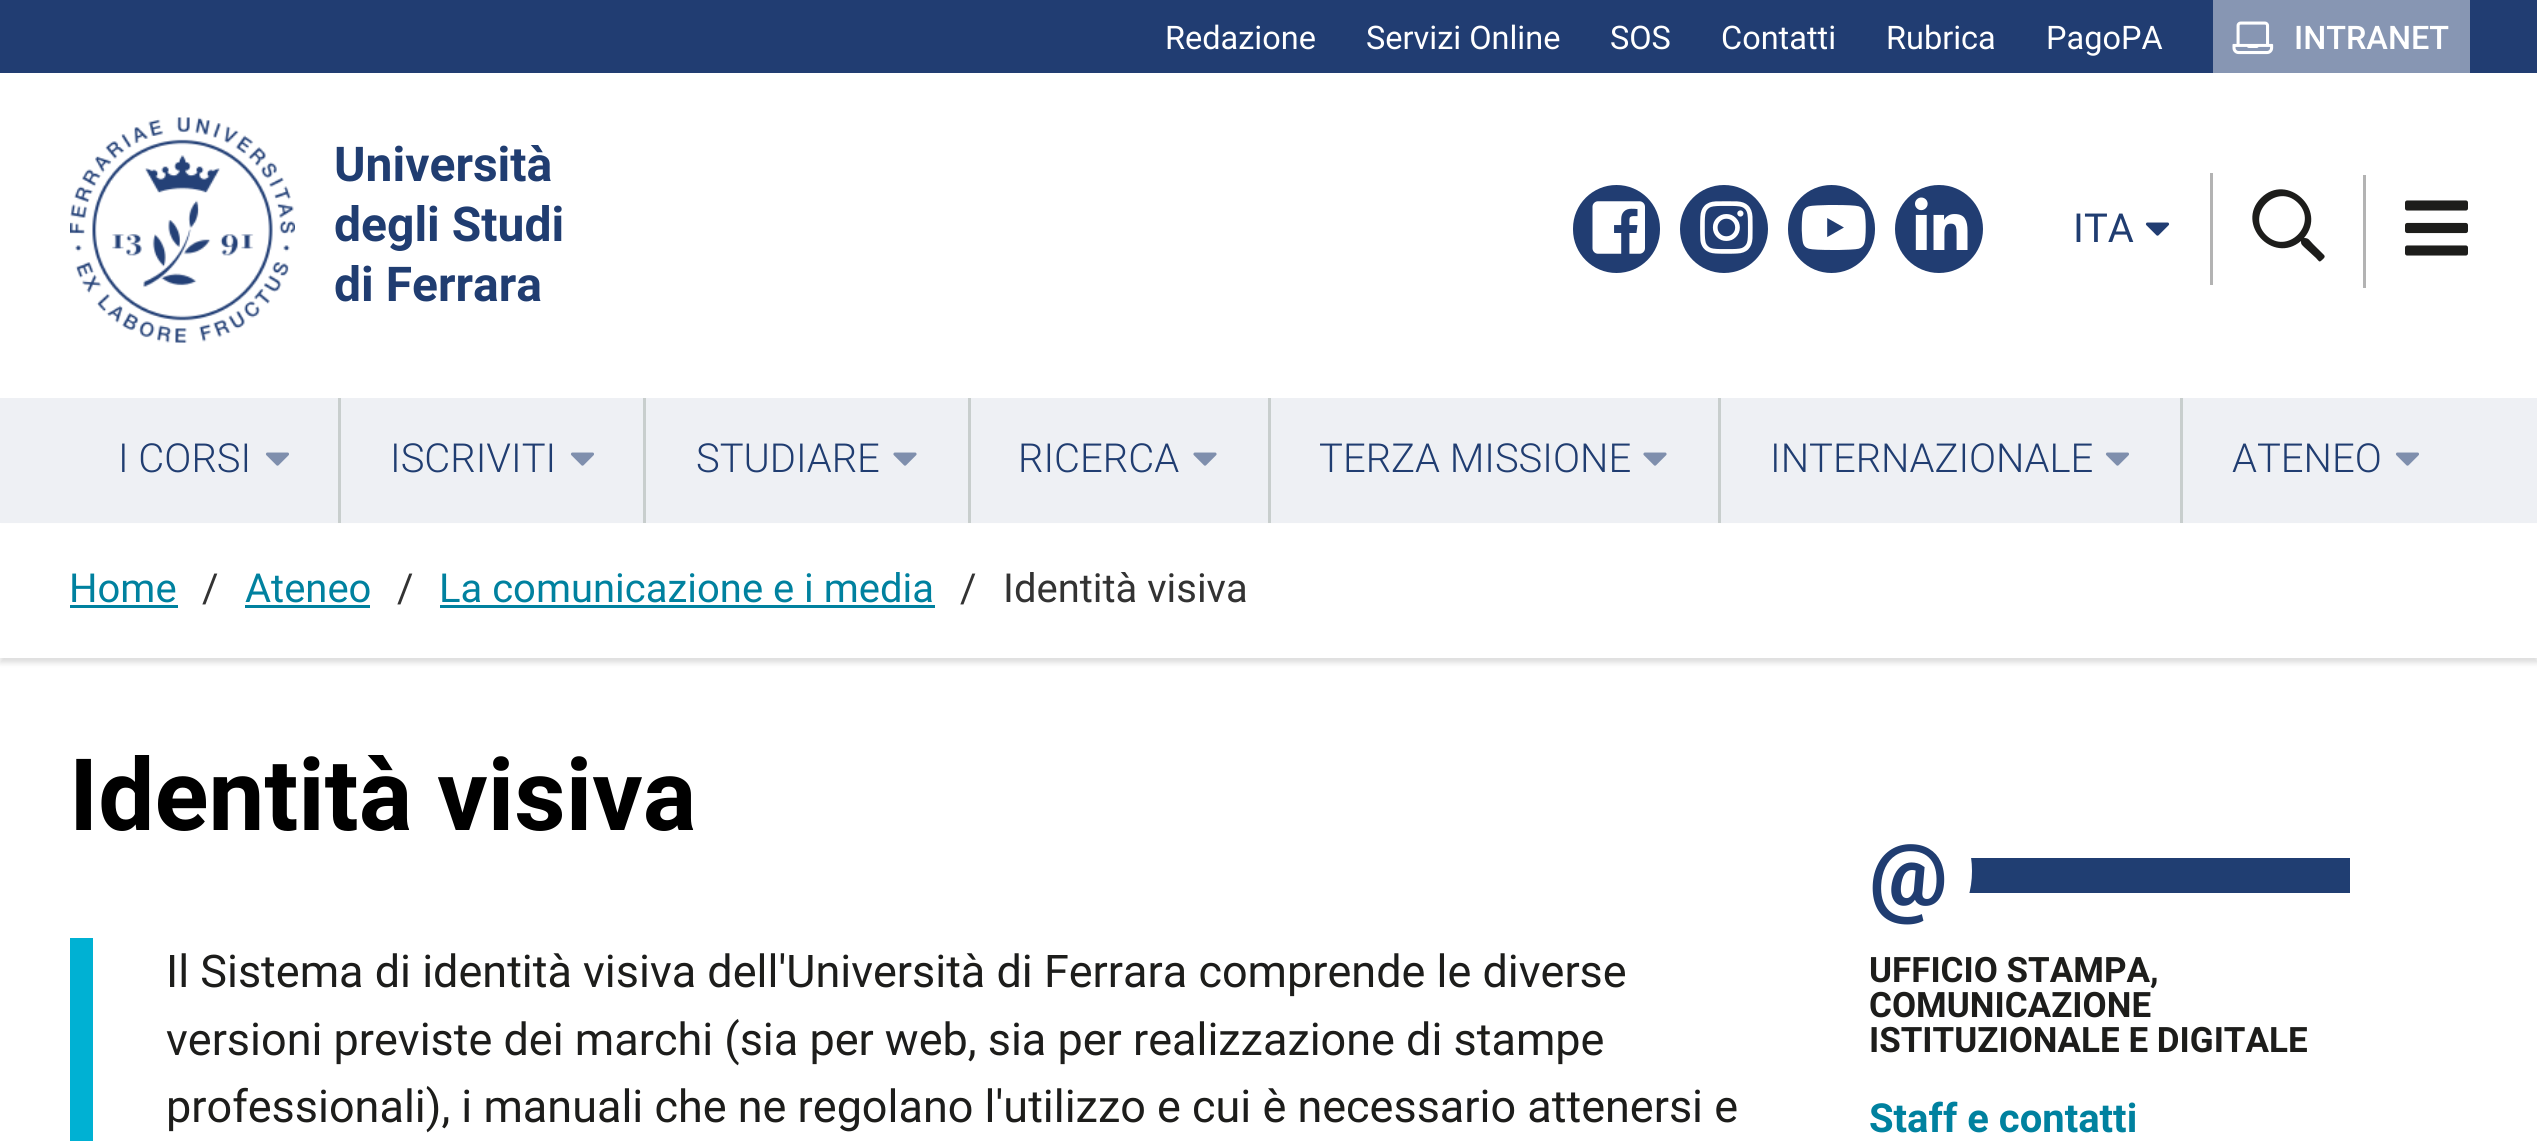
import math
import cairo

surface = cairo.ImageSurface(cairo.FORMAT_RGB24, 2537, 1141)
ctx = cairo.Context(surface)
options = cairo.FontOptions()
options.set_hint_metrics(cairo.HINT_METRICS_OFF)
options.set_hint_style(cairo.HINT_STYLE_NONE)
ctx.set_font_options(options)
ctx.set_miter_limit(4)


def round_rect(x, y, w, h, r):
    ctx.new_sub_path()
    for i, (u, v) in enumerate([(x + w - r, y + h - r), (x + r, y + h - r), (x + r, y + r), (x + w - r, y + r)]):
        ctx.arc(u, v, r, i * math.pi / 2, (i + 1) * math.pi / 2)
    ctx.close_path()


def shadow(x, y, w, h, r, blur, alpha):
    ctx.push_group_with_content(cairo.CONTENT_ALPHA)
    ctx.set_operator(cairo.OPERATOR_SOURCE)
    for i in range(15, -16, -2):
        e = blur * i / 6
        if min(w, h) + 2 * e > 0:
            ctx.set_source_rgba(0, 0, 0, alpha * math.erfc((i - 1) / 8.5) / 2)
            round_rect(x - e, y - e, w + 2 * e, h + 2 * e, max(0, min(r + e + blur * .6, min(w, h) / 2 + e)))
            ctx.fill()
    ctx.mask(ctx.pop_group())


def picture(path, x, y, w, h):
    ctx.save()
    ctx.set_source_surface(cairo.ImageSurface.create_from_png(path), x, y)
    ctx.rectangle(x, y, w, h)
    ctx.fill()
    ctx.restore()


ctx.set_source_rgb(1, 1, 1)
ctx.paint()
ctx.set_source_rgb(0.129, 0.239, 0.447)
ctx.rectangle(0, 0, 2537, 73)
ctx.fill()
ctx.select_font_face("Roboto")
ctx.set_font_size(32.5)
ctx.set_source_rgb(1, 1, 1)
ctx.move_to(1165, 49)
ctx.show_text("Redazione")
ctx.move_to(1366, 49)
ctx.show_text("Servizi Online")
ctx.move_to(1610, 49)
ctx.show_text("SOS")
ctx.move_to(1721, 49)
ctx.show_text("Contatti")
ctx.move_to(1886, 49)
ctx.show_text("Rubrica")
ctx.move_to(2046, 49)
ctx.show_text("PagoPA")
ctx.set_source_rgb(0.529, 0.588, 0.702)
ctx.rectangle(2213, 0, 257, 73)
ctx.fill()
picture("img1.png", 2232, 21, 42, 34)
ctx.select_font_face("Roboto Medium")
ctx.set_source_rgb(1, 1, 1)
ctx.move_to(2294, 49)
ctx.show_text("INTRANET")
picture("img2.png", 70, 117, 225, 226)
ctx.select_font_face("Roboto", cairo.FONT_SLANT_NORMAL, cairo.FONT_WEIGHT_BOLD)
ctx.set_font_size(48)
ctx.set_source_rgb(0.125, 0.239, 0.443)
ctx.move_to(334, 181)
ctx.show_text("Università")
ctx.move_to(334, 241)
ctx.show_text("degli Studi")
ctx.move_to(334, 301)
ctx.show_text("di Ferrara")
ctx.set_source_rgb(0.129, 0.239, 0.447)
round_rect(1573, 185, 87, 88, 43.5)
ctx.fill()
picture("img3.png", 1592, 201, 53, 53)
ctx.arc(1724, 229, 44, 0, 2 * math.pi)
ctx.fill()
picture("img4.png", 1700, 201, 53, 53)
round_rect(1788, 185, 87, 88, 43.5)
ctx.fill()
picture("img5.png", 1801, 205, 65, 45)
ctx.arc(1939, 229, 44, 0, 2 * math.pi)
ctx.fill()
picture("img6.png", 1915, 197, 53, 53)
ctx.select_font_face("Roboto")
ctx.set_font_size(40)
ctx.set_source_rgb(0.125, 0.239, 0.443)
ctx.move_to(2073, 242)
ctx.show_text("ITA")
picture("img7.png", 2145, 222, 25, 14)
ctx.set_source_rgb(0.702, 0.702, 0.702)
ctx.rectangle(2210, 173, 3, 112)
ctx.fill()
ctx.set_source_rgb(0.114, 0.114, 0.106)
ctx.new_path()
ctx.move_to(2324, 255)
ctx.curve_to(2326, 257, 2323, 259, 2322, 260)
ctx.curve_to(2319, 263, 2319, 261, 2316, 258)
ctx.line_to(2304, 247)
ctx.curve_to(2301, 244, 2301, 244, 2301, 241)
ctx.curve_to(2273, 265, 2235, 224, 2261, 198)
ctx.curve_to(2287, 172, 2328, 210, 2304, 238)
ctx.curve_to(2309, 238, 2309, 240, 2313, 244)
ctx.close_path()
ctx.move_to(2266, 235)
ctx.curve_to(2287, 256, 2319, 224, 2298, 203)
ctx.curve_to(2277, 182, 2245, 214, 2266, 235)
ctx.close_path()
ctx.fill()
ctx.set_source_rgb(0.702, 0.702, 0.702)
ctx.rectangle(2363, 175, 3, 113)
ctx.fill()
picture("img8.png", 2405, 200, 63, 56)
ctx.set_source_rgb(0, 0, 0)
shadow(0, 528, 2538, 135, 0, 2.5, 0.13)
ctx.set_source_rgb(0.933, 0.941, 0.957)
ctx.rectangle(0, 398, 2537, 125)
ctx.fill()
ctx.set_source_rgb(0.784, 0.808, 0.804)
ctx.rectangle(338, 398, 3, 125)
ctx.fill()
ctx.select_font_face("Roboto Light")
ctx.set_source_rgb(0.125, 0.239, 0.443)
ctx.move_to(118, 472)
ctx.show_text("I CORSI")
picture("img9.png", 265, 452, 24, 14)
ctx.set_source_rgb(0.784, 0.808, 0.804)
ctx.rectangle(643, 398, 3, 125)
ctx.fill()
ctx.set_source_rgb(0.125, 0.239, 0.443)
ctx.move_to(390, 472)
ctx.show_text("ISCRIVITI")
picture("img9.png", 570, 452, 24, 14)
ctx.set_source_rgb(0.784, 0.808, 0.804)
ctx.rectangle(968, 398, 3, 125)
ctx.fill()
ctx.set_source_rgb(0.125, 0.239, 0.443)
ctx.move_to(696, 472)
ctx.show_text("STUDIARE")
picture("img10.png", 893, 452, 24, 14)
ctx.set_source_rgb(0.784, 0.808, 0.804)
ctx.rectangle(1268, 398, 3, 125)
ctx.fill()
ctx.set_source_rgb(0.125, 0.239, 0.443)
ctx.move_to(1018, 472)
ctx.show_text("RICERCA")
picture("img10.png", 1193, 452, 24, 14)
ctx.set_source_rgb(0.784, 0.808, 0.804)
ctx.rectangle(1718, 398, 3, 125)
ctx.fill()
ctx.set_source_rgb(0.125, 0.239, 0.443)
ctx.move_to(1319, 472)
ctx.show_text("TERZA MISSIONE")
picture("img10.png", 1643, 452, 24, 14)
ctx.set_source_rgb(0.784, 0.808, 0.804)
ctx.rectangle(2180, 398, 3, 125)
ctx.fill()
ctx.set_source_rgb(0.125, 0.239, 0.443)
ctx.move_to(1770, 472)
ctx.show_text("INTERNAZIONALE")
picture("img9.png", 2105, 452, 24, 14)
ctx.move_to(2232, 472)
ctx.show_text("ATENEO")
picture("img9.png", 2395, 452, 24, 14)
ctx.set_source_rgb(1, 1, 1)
ctx.rectangle(0, 524, 2537, 134)
ctx.fill()
ctx.select_font_face("Roboto")
ctx.set_source_rgb(0, 0.506, 0.624)
ctx.move_to(69, 602)
ctx.show_text("Home")
ctx.rectangle(70, 605, 108, 3)
ctx.fill()
ctx.set_source_rgb(0.2, 0.2, 0.2)
ctx.move_to(202, 602)
ctx.show_text("/")
ctx.set_source_rgb(0, 0.506, 0.624)
ctx.move_to(245, 602)
ctx.show_text("Ateneo")
ctx.rectangle(245, 605, 125, 3)
ctx.fill()
ctx.set_source_rgb(0.2, 0.2, 0.2)
ctx.move_to(397, 602)
ctx.show_text("/")
ctx.set_source_rgb(0, 0.506, 0.624)
ctx.move_to(439, 602)
ctx.show_text("La comunicazione e i media")
ctx.rectangle(440, 605, 495, 3)
ctx.fill()
ctx.set_source_rgb(0.2, 0.2, 0.2)
ctx.move_to(960, 602)
ctx.show_text("/")
ctx.move_to(1003, 602)
ctx.show_text("Identità visiva")
ctx.select_font_face("Roboto", cairo.FONT_SLANT_NORMAL, cairo.FONT_WEIGHT_BOLD)
ctx.set_font_size(100)
ctx.set_source_rgb(0, 0, 0)
ctx.move_to(69, 830)
ctx.show_text("Identità visiva")
ctx.set_source_rgb(0, 0.694, 0.827)
ctx.rectangle(70, 938, 23, 203)
ctx.fill()
ctx.select_font_face("Roboto")
ctx.set_font_size(45)
ctx.set_source_rgb(0.114, 0.114, 0.106)
ctx.move_to(166, 987)
ctx.show_text("Il Sistema di identità visiva dell'Università di Ferrara comprende le diverse")
ctx.move_to(166, 1055)
ctx.show_text("versioni previste dei marchi (sia per web, sia per realizzazione di stampe")
ctx.move_to(166, 1122)
ctx.show_text("professionali), i manuali che ne regolano l'utilizzo e cui è necessario attenersi e")
ctx.set_source_rgb(0.125, 0.243, 0.447)
ctx.rectangle(1969, 858, 381, 35)
ctx.fill()
ctx.set_source_rgb(1, 1, 1)
ctx.new_path()
ctx.move_to(1870, 802)
ctx.line_to(1921, 802)
ctx.curve_to(1950, 802, 1972, 833, 1972, 871)
ctx.curve_to(1972, 909, 1950, 940, 1921, 940)
ctx.line_to(1870, 940)
ctx.close_path()
ctx.fill()
ctx.select_font_face("Roboto", cairo.FONT_SLANT_NORMAL, cairo.FONT_WEIGHT_BOLD)
ctx.set_font_size(88)
ctx.set_source_rgb(0.125, 0.239, 0.443)
ctx.move_to(1869, 905)
ctx.show_text("@")
ctx.set_font_size(35)
ctx.set_source_rgb(0.114, 0.114, 0.106)
ctx.move_to(1869, 982)
ctx.show_text("UFFICIO STAMPA,")
ctx.move_to(1869, 1017)
ctx.show_text("COMUNICAZIONE")
ctx.move_to(1869, 1052)
ctx.show_text("ISTITUZIONALE E DIGITALE")
ctx.set_font_size(40)
ctx.set_source_rgb(0, 0.506, 0.624)
ctx.move_to(1869, 1132)
ctx.show_text("Staff e contatti")
surface.write_to_png("page.png")
